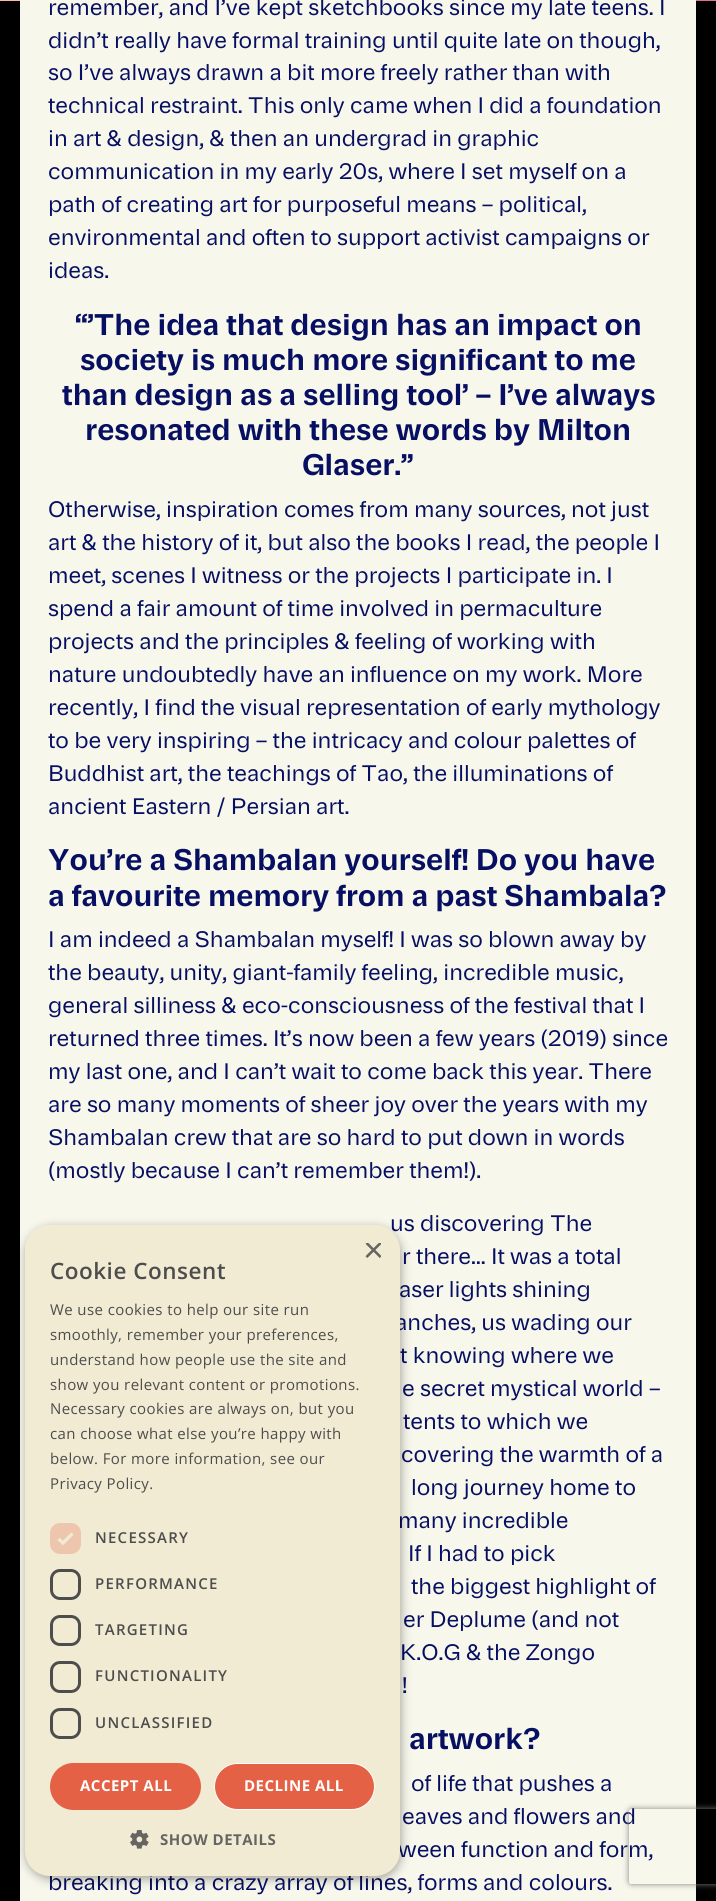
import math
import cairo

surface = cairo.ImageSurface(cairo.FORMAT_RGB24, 716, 1901)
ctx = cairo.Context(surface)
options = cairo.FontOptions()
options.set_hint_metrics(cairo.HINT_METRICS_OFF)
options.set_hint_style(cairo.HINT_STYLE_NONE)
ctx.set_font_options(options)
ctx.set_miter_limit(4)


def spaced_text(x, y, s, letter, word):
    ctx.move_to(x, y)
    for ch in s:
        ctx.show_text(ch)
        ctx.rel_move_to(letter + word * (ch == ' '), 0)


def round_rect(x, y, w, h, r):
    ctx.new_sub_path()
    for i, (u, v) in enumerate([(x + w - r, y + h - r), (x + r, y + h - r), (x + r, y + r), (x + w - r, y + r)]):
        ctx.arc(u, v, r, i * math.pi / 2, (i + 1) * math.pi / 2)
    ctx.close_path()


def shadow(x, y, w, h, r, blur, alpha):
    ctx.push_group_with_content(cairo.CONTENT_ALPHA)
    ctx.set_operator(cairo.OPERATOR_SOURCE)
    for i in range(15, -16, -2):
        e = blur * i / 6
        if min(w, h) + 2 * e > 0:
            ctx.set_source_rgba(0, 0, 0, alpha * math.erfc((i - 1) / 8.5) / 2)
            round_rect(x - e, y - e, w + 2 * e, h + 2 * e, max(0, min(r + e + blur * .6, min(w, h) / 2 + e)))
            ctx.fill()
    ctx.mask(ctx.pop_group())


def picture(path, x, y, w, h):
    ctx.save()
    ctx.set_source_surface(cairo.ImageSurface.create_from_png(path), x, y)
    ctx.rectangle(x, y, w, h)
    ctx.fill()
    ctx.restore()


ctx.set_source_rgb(1, 1, 1)
ctx.paint()
picture("img1.png", 0, 0, 716, 1)
picture("img2.png", 0, 1, 716, 1900)
ctx.set_source_rgb(0.969, 0.965, 0.925)
ctx.rectangle(20, 0, 676, 1901)
ctx.fill()
ctx.select_font_face("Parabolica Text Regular")
ctx.set_font_size(22)
ctx.set_source_rgb(0.024, 0.059, 0.38)
ctx.move_to(48, 15)
ctx.show_text("remember, and I’ve kept sketchbooks since my late teens. I")
ctx.move_to(48, 48)
ctx.show_text("didn’t really have formal training until quite late on though,")
ctx.move_to(48, 80)
ctx.show_text("so I’ve always drawn a bit more freely rather than with")
ctx.move_to(48, 113)
ctx.show_text("technical restraint. This only came when I did a foundation")
ctx.move_to(48, 146)
ctx.show_text("in art & design, & then an undergrad in graphic")
ctx.move_to(48, 179)
ctx.show_text("communication in my early 20s, where I set myself on a")
ctx.move_to(48, 212)
ctx.show_text("path of creating art for purposeful means – political,")
ctx.move_to(48, 245)
ctx.show_text("environmental and often to support activist campaigns or")
ctx.move_to(48, 278)
ctx.show_text("ideas.")
ctx.select_font_face("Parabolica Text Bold", cairo.FONT_SLANT_NORMAL, cairo.FONT_WEIGHT_BOLD)
ctx.set_font_size(29.25)
ctx.move_to(75, 335)
ctx.show_text("“’The idea that design has an impact on")
ctx.move_to(80, 370)
ctx.show_text("society is much more significant to me")
ctx.move_to(62, 405)
ctx.show_text("than design as a selling tool’ – I’ve always")
ctx.move_to(85, 440)
ctx.show_text("resonated with these words by Milton")
ctx.move_to(302, 475)
ctx.show_text("Glaser.”")
ctx.select_font_face("Parabolica Text Regular")
ctx.set_font_size(22)
ctx.move_to(48, 517)
ctx.show_text("Otherwise, inspiration comes from many sources, not just")
ctx.move_to(48, 550)
ctx.show_text("art & the history of it, but also the books I read, the people I")
ctx.move_to(48, 583)
ctx.show_text("meet, scenes I witness or the projects I participate in. I")
ctx.move_to(48, 616)
ctx.show_text("spend a fair amount of time involved in permaculture")
ctx.move_to(48, 649)
ctx.show_text("projects and the principles & feeling of working with")
ctx.move_to(48, 682)
ctx.show_text("nature undoubtedly have an influence on my work. More")
ctx.move_to(48, 715)
ctx.show_text("recently, I find the visual representation of early mythology")
ctx.move_to(48, 748)
ctx.show_text("to be very inspiring – the intricacy and colour palettes of")
ctx.move_to(48, 781)
ctx.show_text("Buddhist art, the teachings of Tao, the illuminations of")
ctx.move_to(48, 814)
ctx.show_text("ancient Eastern / Persian art.")
ctx.select_font_face("Parabolica Text Bold", cairo.FONT_SLANT_NORMAL, cairo.FONT_WEIGHT_BOLD)
ctx.set_font_size(29.25)
ctx.move_to(48, 870)
ctx.show_text("You’re a Shambalan yourself! Do you have")
ctx.move_to(48, 906)
ctx.show_text("a favourite memory from a past Shambala?")
ctx.select_font_face("Parabolica Text Regular")
ctx.set_font_size(22)
ctx.move_to(48, 947)
ctx.show_text("I am indeed a Shambalan myself! I was so blown away by")
ctx.move_to(48, 980)
ctx.show_text("the beauty, unity, giant-family feeling, incredible music,")
ctx.move_to(48, 1013)
ctx.show_text("general silliness & eco-consciousness of the festival that I")
ctx.move_to(48, 1046)
ctx.show_text("returned three times. It’s now been a few years (2019) since")
ctx.move_to(48, 1079)
ctx.show_text("my last one, and I can’t wait to come back this year. There")
ctx.move_to(48, 1112)
ctx.show_text("are so many moments of sheer joy over the years with my")
ctx.move_to(48, 1145)
ctx.show_text("Shambalan crew that are so hard to put down in words")
ctx.move_to(48, 1178)
ctx.show_text("(mostly because I can’t remember them!).")
ctx.move_to(390, 1231)
ctx.show_text("us discovering The")
ctx.move_to(402, 1264)
ctx.show_text("r there… It was a total")
ctx.move_to(399, 1297)
ctx.show_text("aser lights shining")
ctx.move_to(395, 1330)
ctx.show_text("anches, us wading our")
ctx.move_to(400, 1363)
ctx.show_text("t knowing where we")
ctx.move_to(402, 1396)
ctx.show_text("e secret mystical world –")
ctx.move_to(403, 1429)
ctx.show_text("tents to which we")
ctx.move_to(401, 1462)
ctx.show_text("covering the warmth of a")
ctx.move_to(411, 1495)
ctx.show_text("long journey home to")
ctx.move_to(398, 1528)
ctx.show_text("many incredible")
ctx.move_to(408, 1561)
ctx.show_text("If I had to pick")
ctx.move_to(411, 1594)
ctx.show_text("the biggest highlight of")
ctx.move_to(403, 1627)
ctx.show_text("er Deplume (and not")
ctx.move_to(400, 1660)
ctx.show_text("K.O.G & the Zongo")
ctx.move_to(402, 1693)
ctx.show_text("!")
ctx.select_font_face("Parabolica Text Bold", cairo.FONT_SLANT_NORMAL, cairo.FONT_WEIGHT_BOLD)
ctx.set_font_size(29.25)
ctx.move_to(409, 1749)
ctx.show_text("artwork?")
ctx.select_font_face("Parabolica Text Regular")
ctx.set_font_size(22)
ctx.move_to(411, 1791)
ctx.show_text("of life that pushes a")
ctx.move_to(402, 1824)
ctx.show_text("eaves and flowers and")
ctx.move_to(398, 1857)
ctx.show_text("ween function and form,")
ctx.move_to(48, 1890)
ctx.show_text("breaking into a crazy array of lines, forms and colours.")
ctx.set_source_rgb(0, 0, 0)
shadow(26, 1228, 375, 651, 25, 5, 0.35)
ctx.set_source_rgb(0.945, 0.918, 0.827)
round_rect(25, 1225, 375, 651, 25)
ctx.fill()
ctx.save()
ctx.rectangle(363, 1243, 18, 18)
ctx.clip()
ctx.select_font_face("Liberation Sans")
ctx.set_font_size(36)
ctx.set_source_rgb(0.4, 0.396, 0.38)
ctx.move_to(363, 1262)
ctx.show_text("×")
ctx.restore()
ctx.select_font_face("Open Sans SemiBold")
ctx.set_font_size(22.5)
ctx.set_source_rgb(0.302, 0.302, 0.302)
spaced_text(50, 1279, "Cookie Consent", 0.5, 0)
ctx.select_font_face("Open Sans")
ctx.set_font_size(15)
spaced_text(50, 1315, "We use cookies to help our site run", 0.4, 0)
spaced_text(50, 1340, "smoothly, remember your preferences,", 0.4, 0)
spaced_text(50, 1365, "understand how people use the site and", 0.4, 0)
spaced_text(50, 1390, "show you relevant content or promotions.", 0.4, 0)
spaced_text(50, 1414, "Necessary cookies are always on, but you", 0.4, 0)
spaced_text(50, 1439, "can choose what else you’re happy with", 0.4, 0)
spaced_text(50, 1464, "below. For more information, see our", 0.4, 0)
spaced_text(50, 1489, "Privacy Policy.", 0.4, 0)
ctx.set_source_rgb(0.933, 0.776, 0.682)
round_rect(50, 1523, 31, 31, 10)
ctx.fill()
ctx.new_path()
ctx.move_to(58.5, 1539)
ctx.line_to(63, 1543)
ctx.line_to(72.5, 1533.5)
ctx.set_source_rgb(0.945, 0.918, 0.827)
ctx.set_line_width(3.3)
ctx.stroke()
ctx.select_font_face("Open Sans SemiBold")
ctx.set_source_rgb(0.302, 0.302, 0.302)
spaced_text(95, 1543, "NECESSARY", 1.25, 0)
round_rect(51.5, 1570.5, 28, 28, 8.5)
ctx.set_line_width(3)
ctx.stroke()
spaced_text(95, 1589, "PERFORMANCE", 1.25, 0)
round_rect(51.5, 1616.5, 28, 28, 8.5)
ctx.stroke()
spaced_text(95, 1635, "TARGETING", 1.25, 0)
round_rect(51.5, 1662.5, 28, 29, 8.5)
ctx.stroke()
spaced_text(95, 1681, "FUNCTIONALITY", 1.25, 0)
round_rect(51.5, 1709.5, 28, 28, 8.5)
ctx.stroke()
spaced_text(95, 1728, "UNCLASSIFIED", 1.25, 0)
ctx.set_source_rgb(0.898, 0.38, 0.271)
round_rect(50, 1763, 151, 47, 23.5)
ctx.fill()
ctx.select_font_face("Open Sans", cairo.FONT_SLANT_NORMAL, cairo.FONT_WEIGHT_BOLD)
ctx.set_source_rgb(1, 1, 1)
spaced_text(80, 1791, "ACCEPT ALL", 0.5, 0)
ctx.set_source_rgb(0.898, 0.38, 0.271)
round_rect(214.5, 1763.5, 160, 46, 23)
ctx.fill_preserve()
ctx.set_source_rgb(1, 1, 1)
ctx.set_line_width(1)
ctx.stroke()
spaced_text(244, 1791, "DECLINE ALL", 0.5, 0)
picture("img3.png", 130, 1830, 19, 19)
ctx.set_source_rgb(0.4, 0.396, 0.38)
spaced_text(160, 1845, "SHOW DETAILS", 0.5, 0)
ctx.save()
ctx.set_fill_rule(cairo.FILL_RULE_EVEN_ODD)
ctx.new_path()
ctx.move_to(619, 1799)
ctx.line_to(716, 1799)
ctx.line_to(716, 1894)
ctx.line_to(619, 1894)
ctx.close_path()
ctx.move_to(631.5, 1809)
ctx.line_to(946.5, 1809)
ctx.curve_to(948, 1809, 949, 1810, 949, 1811.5)
ctx.line_to(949, 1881.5)
ctx.curve_to(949, 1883, 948, 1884, 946.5, 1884)
ctx.line_to(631.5, 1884)
ctx.curve_to(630, 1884, 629, 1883, 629, 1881.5)
ctx.line_to(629, 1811.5)
ctx.curve_to(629, 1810, 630, 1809, 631.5, 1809)
ctx.close_path()
ctx.clip()
ctx.set_source_rgb(0.502, 0.502, 0.502)
shadow(629, 1809, 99, 75, 2.5, 3, 1)
ctx.restore()
surface.write_to_png("page.png")
